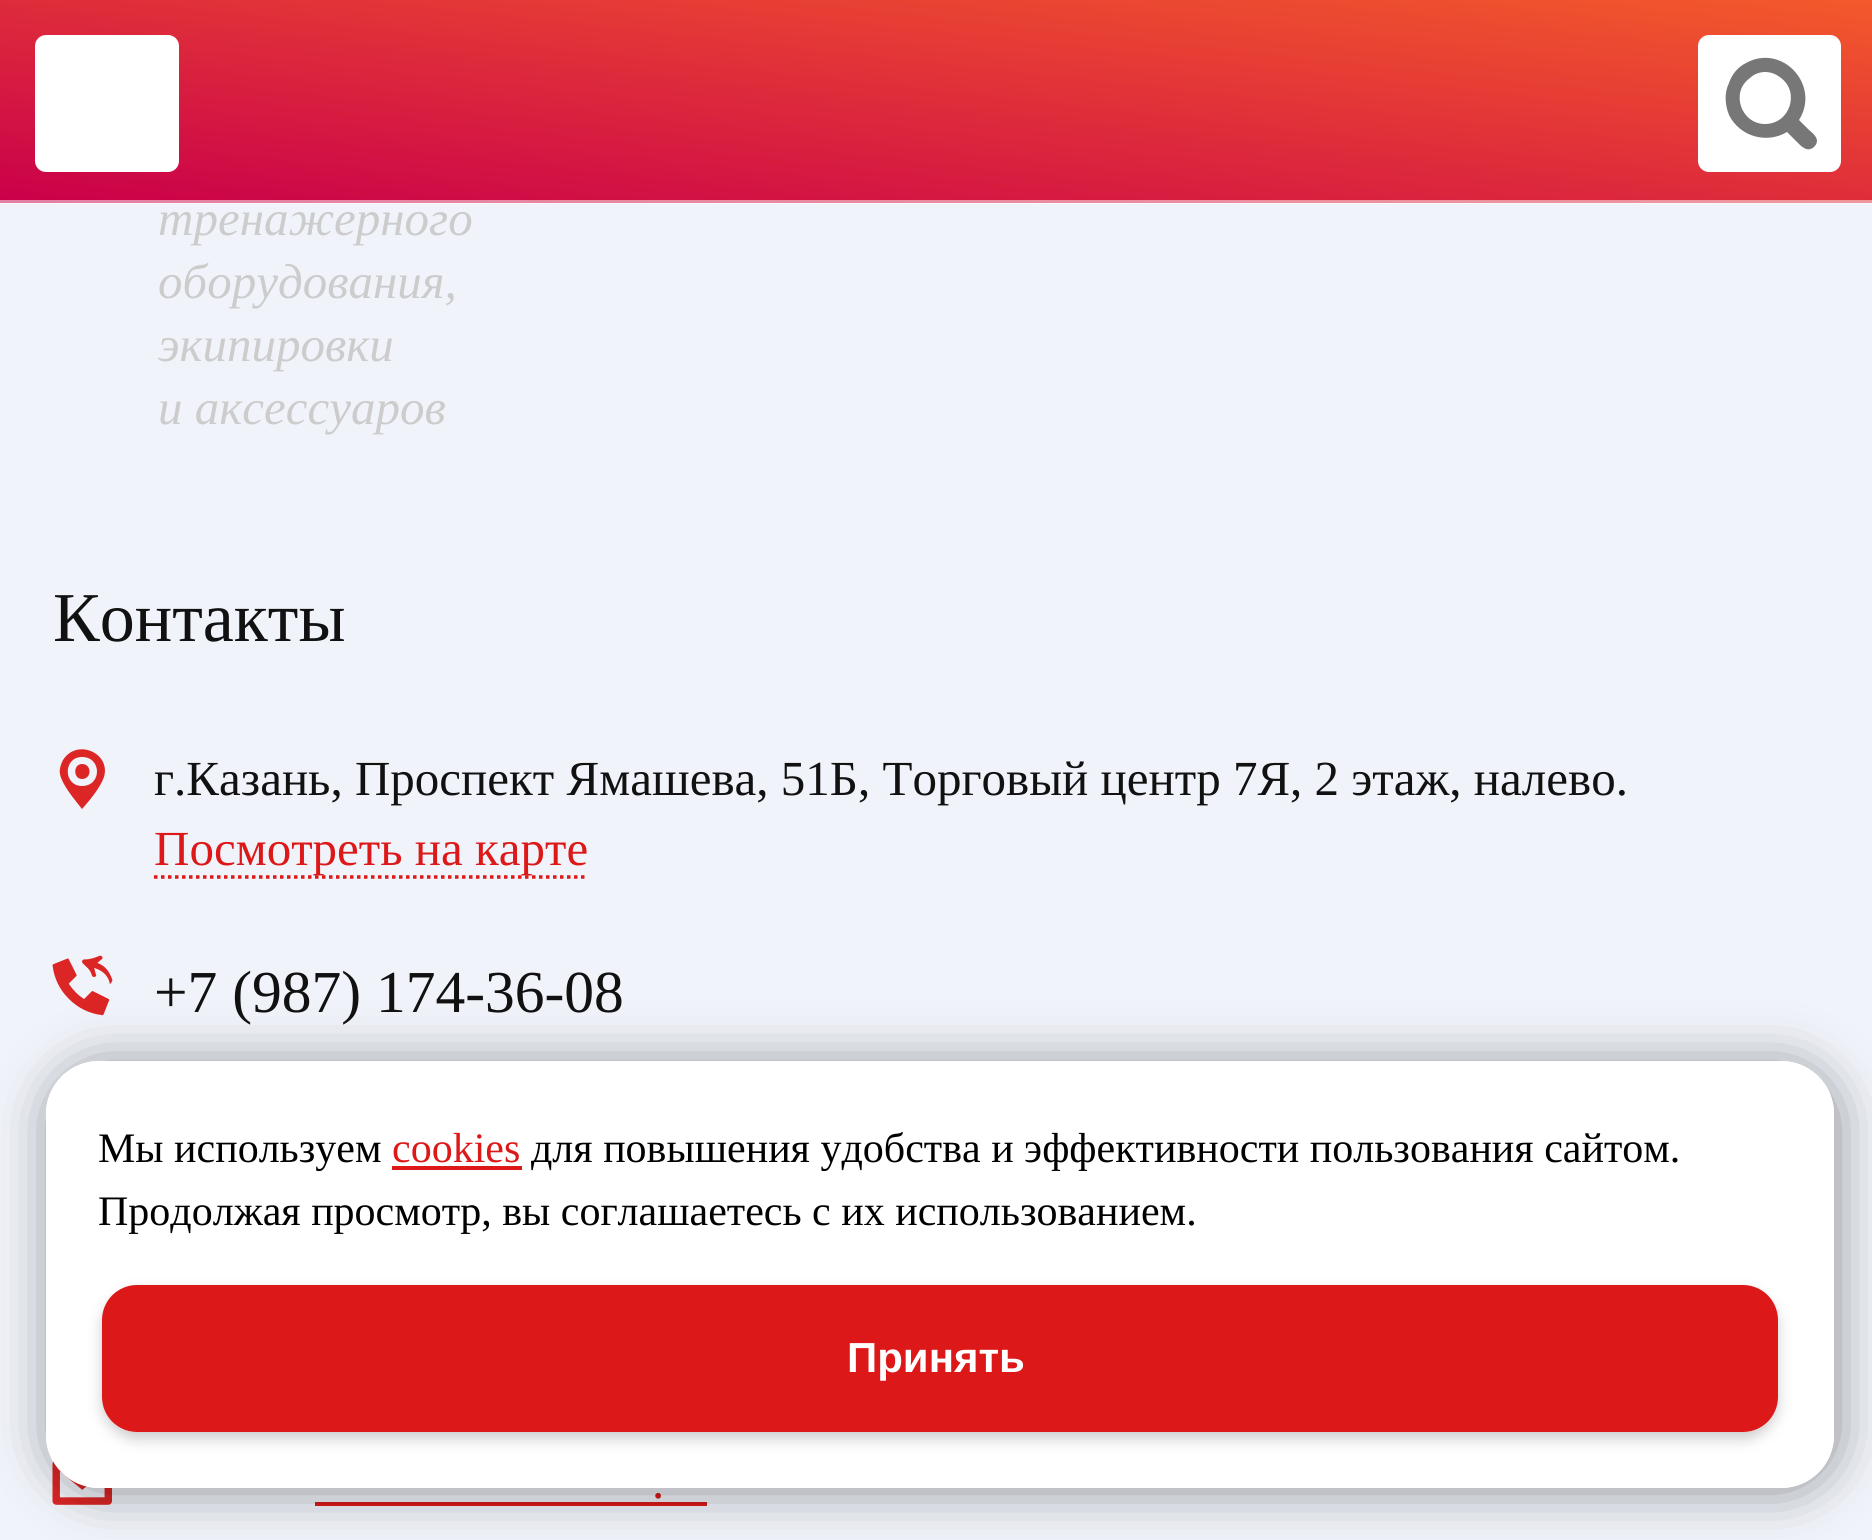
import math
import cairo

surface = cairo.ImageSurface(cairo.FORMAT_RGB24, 1872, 1540)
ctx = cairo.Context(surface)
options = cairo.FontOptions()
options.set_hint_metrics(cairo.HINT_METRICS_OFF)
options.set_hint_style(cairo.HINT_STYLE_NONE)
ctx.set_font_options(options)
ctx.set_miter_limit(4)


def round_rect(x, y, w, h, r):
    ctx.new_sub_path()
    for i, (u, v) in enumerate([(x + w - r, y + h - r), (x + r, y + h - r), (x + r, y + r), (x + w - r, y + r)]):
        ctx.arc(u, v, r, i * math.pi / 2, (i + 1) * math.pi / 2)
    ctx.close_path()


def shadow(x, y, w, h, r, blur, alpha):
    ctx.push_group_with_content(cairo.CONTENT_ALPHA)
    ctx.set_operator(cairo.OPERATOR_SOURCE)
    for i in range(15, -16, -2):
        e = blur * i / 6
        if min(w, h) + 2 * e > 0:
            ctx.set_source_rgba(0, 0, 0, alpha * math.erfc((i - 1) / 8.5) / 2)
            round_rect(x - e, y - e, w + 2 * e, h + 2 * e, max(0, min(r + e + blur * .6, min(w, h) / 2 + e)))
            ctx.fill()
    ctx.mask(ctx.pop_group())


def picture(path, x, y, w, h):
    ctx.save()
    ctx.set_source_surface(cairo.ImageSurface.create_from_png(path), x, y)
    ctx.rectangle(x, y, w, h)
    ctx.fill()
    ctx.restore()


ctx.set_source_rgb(0.941, 0.953, 0.973)
ctx.paint()
gradient = cairo.LinearGradient(958, -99, 914, 302)
gradient.add_color_stop_rgba(0, 0.953, 0.349, 0.169, 1)
gradient.add_color_stop_rgba(1, 0.792, 0, 0.29, 1)
ctx.set_source(gradient)
ctx.rectangle(0, 0, 1872, 203)
ctx.fill()
ctx.set_source_rgba(1, 1, 1, 0.5)
ctx.rectangle(0, 200, 1872, 4)
ctx.fill()
ctx.set_source_rgb(1, 1, 1)
round_rect(35, 35, 144, 137, 11)
ctx.fill()
round_rect(1698, 35, 143, 137, 11)
ctx.fill()
ctx.set_source_rgb(0.467, 0.467, 0.467)
ctx.new_path()
ctx.move_to(1814, 147)
ctx.curve_to(1807, 153, 1801, 146, 1797, 142)
ctx.line_to(1787, 132)
ctx.curve_to(1767, 144, 1740, 137, 1729, 115)
ctx.curve_to(1725, 105, 1724, 93, 1729, 83)
ctx.curve_to(1732, 74, 1738, 67, 1746, 63)
ctx.curve_to(1782, 43, 1821, 85, 1799, 120)
ctx.line_to(1809, 130)
ctx.curve_to(1814, 134, 1821, 140, 1814, 147)
ctx.close_path()
ctx.move_to(1765, 72)
ctx.curve_to(1760, 72, 1754, 74, 1750, 78)
ctx.curve_to(1730, 92, 1741, 124, 1765, 124)
ctx.curve_to(1790, 124, 1800, 92, 1781, 78)
ctx.curve_to(1776, 74, 1771, 72, 1765, 72)
ctx.close_path()
ctx.fill()
ctx.select_font_face("Liberation Serif", cairo.FONT_SLANT_ITALIC)
ctx.set_font_size(49)
ctx.set_source_rgb(0.8, 0.8, 0.8)
ctx.move_to(158, 235)
ctx.show_text("тренажерного")
ctx.move_to(158, 298)
ctx.show_text("оборудования,")
ctx.move_to(158, 361)
ctx.show_text("экипировки")
ctx.move_to(158, 424)
ctx.show_text("и аксессуаров")
ctx.select_font_face("Liberation Serif")
ctx.set_font_size(70)
ctx.set_source_rgb(0.067, 0.067, 0.067)
ctx.move_to(53, 641)
ctx.show_text("Контакты")
ctx.set_source_rgb(0.863, 0.145, 0.145)
ctx.new_path()
ctx.move_to(82, 809)
ctx.curve_to(75, 800, 62, 785, 60, 774)
ctx.curve_to(59, 769, 61, 764, 63, 760)
ctx.curve_to(77, 738, 111, 753, 104, 777)
ctx.curve_to(100, 788, 90, 800, 82, 809)
ctx.close_path()
ctx.move_to(82, 757)
ctx.curve_to(63, 757, 63, 786, 82, 786)
ctx.curve_to(102, 786, 102, 757, 82, 757)
ctx.close_path()
ctx.move_to(82, 779)
ctx.curve_to(73, 779, 73, 764, 82, 764)
ctx.curve_to(92, 764, 92, 779, 82, 779)
ctx.close_path()
ctx.fill()
ctx.set_font_size(49)
ctx.set_source_rgb(0.067, 0.067, 0.067)
ctx.move_to(154, 795)
ctx.show_text("г.Казань, Проспект Ямашева, 51Б, Торговый центр 7Я, 2 этаж, налево.")
ctx.new_path()
ctx.move_to(154, 877)
ctx.line_to(588, 877)
ctx.set_source_rgb(0.867, 0.094, 0.094)
ctx.set_line_width(3.5)
ctx.set_dash([3.5, 3.5])
ctx.stroke()
ctx.move_to(154, 865)
ctx.show_text("Посмотреть на карте")
picture("img1.png", 52, 955, 61, 61)
ctx.set_font_size(59.5)
ctx.set_source_rgb(0.067, 0.067, 0.067)
ctx.move_to(154, 1012)
ctx.show_text("+7 (987) 174-36-08")
picture("img2.png", 52, 1461, 60, 44)
ctx.set_font_size(49)
ctx.set_source_rgb(0.867, 0.094, 0.094)
ctx.move_to(652, 1498)
ctx.show_text(".")
ctx.rectangle(315, 1502, 392, 4)
ctx.fill()
ctx.save()
ctx.set_fill_rule(cairo.FILL_RULE_EVEN_ODD)
ctx.new_path()
ctx.move_to(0, 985)
ctx.line_to(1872, 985)
ctx.line_to(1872, 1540)
ctx.line_to(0, 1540)
ctx.close_path()
ctx.move_to(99, 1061)
ctx.line_to(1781, 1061)
ctx.curve_to(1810.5, 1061, 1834, 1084.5, 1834, 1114)
ctx.line_to(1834, 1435)
ctx.curve_to(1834, 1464.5, 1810.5, 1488, 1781, 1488)
ctx.line_to(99, 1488)
ctx.curve_to(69.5, 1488, 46, 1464.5, 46, 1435)
ctx.line_to(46, 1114)
ctx.curve_to(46, 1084.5, 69.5, 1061, 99, 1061)
ctx.close_path()
ctx.clip()
ctx.set_source_rgb(0, 0, 0)
shadow(49, 1064, 1789, 427, 53, 26, 0.4)
ctx.restore()
ctx.set_source_rgb(1, 1, 1)
round_rect(46, 1061, 1788, 427, 53)
ctx.fill()
ctx.set_font_size(42)
ctx.set_source_rgb(0, 0, 0)
ctx.move_to(98, 1162)
ctx.show_text("Мы используем")
ctx.set_source_rgb(0.867, 0.094, 0.094)
ctx.move_to(392, 1162)
ctx.show_text("cookies")
ctx.rectangle(392, 1166, 130, 4)
ctx.fill()
ctx.set_source_rgb(0, 0, 0)
ctx.move_to(531, 1162)
ctx.show_text("для повышения удобства и эффективности пользования сайтом.")
ctx.move_to(98, 1225)
ctx.show_text("Продолжая просмотр, вы соглашаетесь с их использованием.")
ctx.save()
ctx.set_fill_rule(cairo.FILL_RULE_EVEN_ODD)
ctx.new_path()
ctx.move_to(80, 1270)
ctx.line_to(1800, 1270)
ctx.line_to(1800, 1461)
ctx.line_to(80, 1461)
ctx.close_path()
ctx.move_to(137, 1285)
ctx.line_to(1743, 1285)
ctx.curve_to(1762.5, 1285, 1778, 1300.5, 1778, 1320)
ctx.line_to(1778, 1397)
ctx.curve_to(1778, 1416.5, 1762.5, 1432, 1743, 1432)
ctx.line_to(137, 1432)
ctx.curve_to(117.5, 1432, 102, 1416.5, 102, 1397)
ctx.line_to(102, 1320)
ctx.curve_to(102, 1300.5, 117.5, 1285, 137, 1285)
ctx.close_path()
ctx.clip()
ctx.set_source_rgb(0, 0, 0)
shadow(102, 1292, 1676, 147, 35, 7, 0.2)
ctx.restore()
ctx.set_source_rgb(0.867, 0.094, 0.094)
round_rect(102, 1285, 1676, 147, 35)
ctx.fill()
ctx.select_font_face("Liberation Sans", cairo.FONT_SLANT_NORMAL, cairo.FONT_WEIGHT_BOLD)
ctx.set_source_rgb(1, 1, 1)
ctx.move_to(847, 1372)
ctx.show_text("Принять")
surface.write_to_png("page.png")
